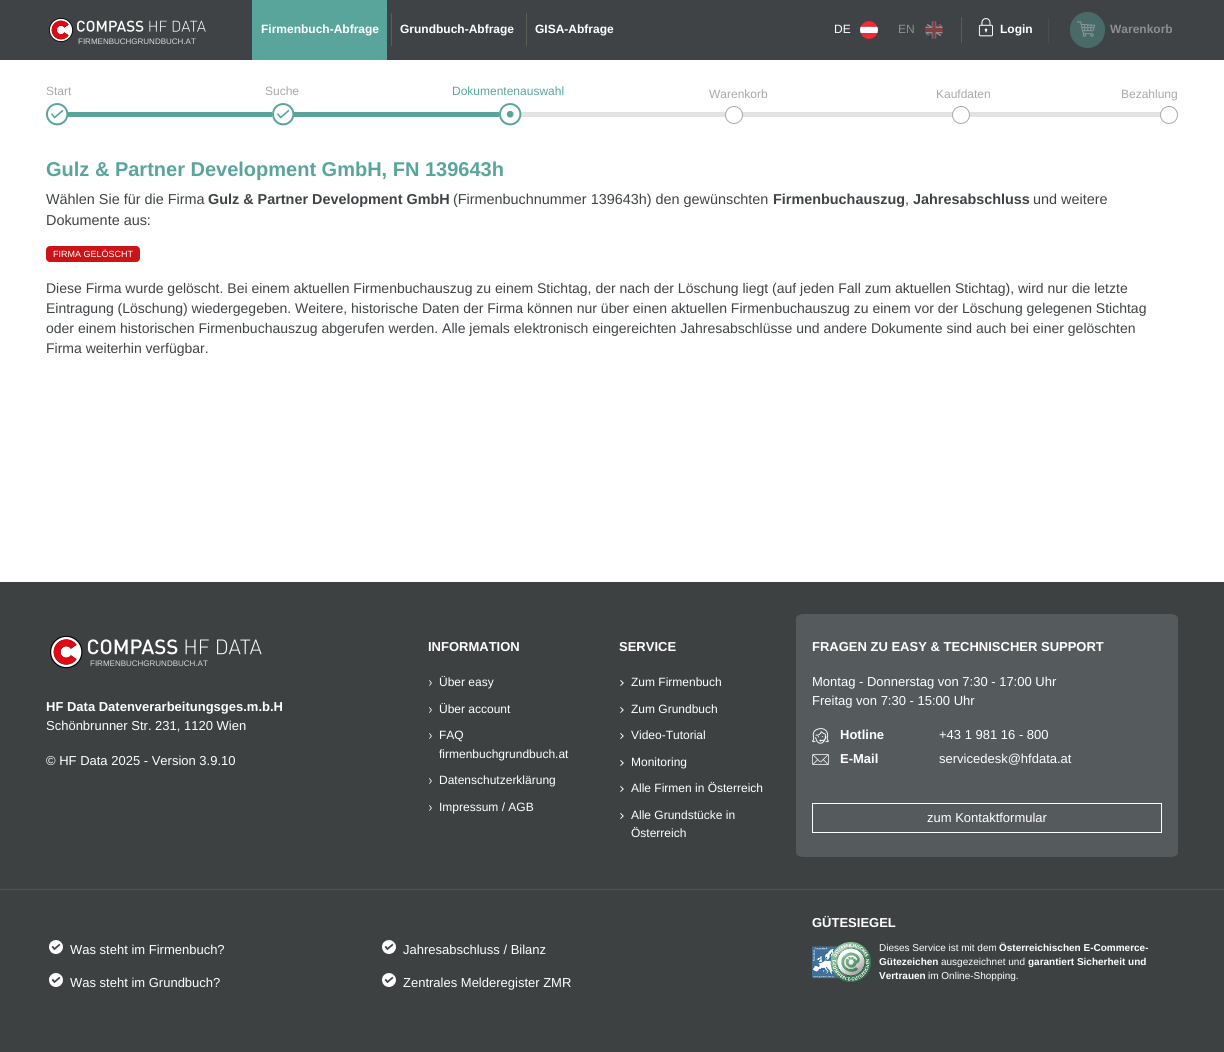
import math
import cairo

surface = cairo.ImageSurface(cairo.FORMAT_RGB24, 1224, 1052)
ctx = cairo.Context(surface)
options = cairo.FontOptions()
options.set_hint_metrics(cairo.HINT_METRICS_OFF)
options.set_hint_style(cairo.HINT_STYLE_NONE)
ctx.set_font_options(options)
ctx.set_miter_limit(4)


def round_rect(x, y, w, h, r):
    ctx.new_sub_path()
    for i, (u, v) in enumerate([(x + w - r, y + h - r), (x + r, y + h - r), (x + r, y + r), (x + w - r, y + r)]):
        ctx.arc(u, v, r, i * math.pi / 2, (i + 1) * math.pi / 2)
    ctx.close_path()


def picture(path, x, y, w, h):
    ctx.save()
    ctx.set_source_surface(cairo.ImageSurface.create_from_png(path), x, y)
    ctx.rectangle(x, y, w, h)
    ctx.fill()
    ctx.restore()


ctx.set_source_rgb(1, 1, 1)
ctx.paint()
ctx.set_source_rgb(0.247, 0.263, 0.271)
ctx.rectangle(0, 0, 1224, 60)
ctx.fill()
ctx.set_source_rgb(0.349, 0.647, 0.612)
ctx.rectangle(252, 0, 135, 60)
ctx.fill()
ctx.select_font_face("Liberation Sans", cairo.FONT_SLANT_NORMAL, cairo.FONT_WEIGHT_BOLD)
ctx.set_font_size(12)
ctx.set_source_rgb(1, 1, 1)
ctx.move_to(261, 33)
ctx.show_text("Firmenbuch-Abfrage")
ctx.set_source_rgb(0.353, 0.369, 0.341)
ctx.rectangle(391, 13, 1, 33)
ctx.fill()
ctx.set_source_rgb(1, 1, 1)
ctx.move_to(400, 33)
ctx.show_text("Grundbuch-Abfrage")
ctx.set_source_rgb(0.353, 0.369, 0.341)
ctx.rectangle(526, 13, 1, 33)
ctx.fill()
ctx.set_source_rgb(1, 1, 1)
ctx.move_to(535, 33)
ctx.show_text("GISA-Abfrage")
ctx.select_font_face("Liberation Sans")
ctx.move_to(834, 33)
ctx.show_text("DE")
picture("img1.png", 860, 21, 18, 18)
ctx.set_source_rgb(0.549, 0.557, 0.561)
ctx.move_to(898, 33)
ctx.show_text("EN")
picture("img2.png", 925, 21, 18, 18)
ctx.set_source_rgb(0.353, 0.369, 0.341)
ctx.rectangle(961, 17, 1, 26)
ctx.fill()
picture("img3.png", 978, 18, 15, 19)
ctx.select_font_face("Liberation Sans", cairo.FONT_SLANT_NORMAL, cairo.FONT_WEIGHT_BOLD)
ctx.set_source_rgb(1, 1, 1)
ctx.move_to(1000, 33)
ctx.show_text("Login")
ctx.set_source_rgb(0.29, 0.306, 0.298)
ctx.rectangle(1048, 18, 1, 25)
ctx.fill()
ctx.set_source_rgb(0.286, 0.416, 0.408)
round_rect(1070, 12, 35, 36, 17.5)
ctx.fill()
picture("img4.png", 1077, 21, 19, 16)
ctx.set_source_rgb(0.549, 0.557, 0.561)
ctx.move_to(1110, 33)
ctx.show_text("Warenkorb")
picture("img5.png", 49, 18, 157, 24)
ctx.select_font_face("Liberation Sans")
ctx.set_font_size(8)
ctx.set_source_rgb(0.847, 0.851, 0.851)
ctx.move_to(78, 44)
ctx.show_text("FIRMENBUCHGRUNDBUCH.AT")
ctx.set_font_size(12)
ctx.set_source_rgb(0.663, 0.663, 0.663)
ctx.move_to(46, 95)
ctx.show_text("Start")
ctx.set_source_rgb(0.349, 0.647, 0.612)
ctx.rectangle(68, 112, 431, 5)
ctx.fill()
picture("img6.png", 46, 103, 23, 23)
ctx.set_source_rgb(0.663, 0.663, 0.663)
ctx.move_to(265, 95)
ctx.show_text("Suche")
ctx.set_source_rgb(1, 1, 1)
ctx.rectangle(272, 112, 22, 5)
ctx.fill()
picture("img6.png", 272, 103, 23, 23)
ctx.set_source_rgb(0.349, 0.647, 0.612)
ctx.move_to(452, 95)
ctx.show_text("Dokumentenauswahl")
ctx.set_source_rgb(0.89, 0.89, 0.89)
ctx.rectangle(521, 112, 657, 5)
ctx.fill()
picture("img7.png", 499, 103, 23, 23)
ctx.set_source_rgb(0.663, 0.663, 0.663)
ctx.move_to(709, 98)
ctx.show_text("Warenkorb")
ctx.set_source_rgb(1, 1, 1)
ctx.new_path()
ctx.arc(734, 115, 8.5, 0, 2 * math.pi)
ctx.fill_preserve()
ctx.set_source_rgb(0.663, 0.663, 0.663)
ctx.set_line_width(1)
ctx.stroke()
ctx.move_to(936, 98)
ctx.show_text("Kaufdaten")
ctx.set_source_rgb(1, 1, 1)
ctx.new_path()
ctx.arc(961, 115, 8.5, 0, 2 * math.pi)
ctx.fill_preserve()
ctx.set_source_rgb(0.663, 0.663, 0.663)
ctx.stroke()
ctx.move_to(1121, 98)
ctx.show_text("Bezahlung")
ctx.set_source_rgb(1, 1, 1)
ctx.new_path()
ctx.arc(1169, 115, 8.5, 0, 2 * math.pi)
ctx.fill_preserve()
ctx.set_source_rgb(0.663, 0.663, 0.663)
ctx.stroke()
ctx.select_font_face("Liberation Sans", cairo.FONT_SLANT_NORMAL, cairo.FONT_WEIGHT_BOLD)
ctx.set_font_size(20)
ctx.set_source_rgb(0.349, 0.647, 0.612)
ctx.move_to(46, 176)
ctx.show_text("Gulz & Partner Development GmbH, FN 139643h")
ctx.select_font_face("Liberation Sans")
ctx.set_font_size(14.4)
ctx.set_source_rgb(0.247, 0.263, 0.271)
ctx.move_to(46, 204)
ctx.show_text("Wählen Sie für die Firma")
ctx.select_font_face("Liberation Sans", cairo.FONT_SLANT_NORMAL, cairo.FONT_WEIGHT_BOLD)
ctx.move_to(208, 204)
ctx.show_text("Gulz & Partner Development GmbH")
ctx.select_font_face("Liberation Sans")
ctx.move_to(453, 204)
ctx.show_text("(Firmenbuchnummer 139643h) den gewünschten")
ctx.select_font_face("Liberation Sans", cairo.FONT_SLANT_NORMAL, cairo.FONT_WEIGHT_BOLD)
ctx.move_to(773, 204)
ctx.show_text("Firmenbuchauszug")
ctx.select_font_face("Liberation Sans")
ctx.move_to(905, 204)
ctx.show_text(",")
ctx.select_font_face("Liberation Sans", cairo.FONT_SLANT_NORMAL, cairo.FONT_WEIGHT_BOLD)
ctx.move_to(913, 204)
ctx.show_text("Jahresabschluss")
ctx.select_font_face("Liberation Sans")
ctx.move_to(1033, 204)
ctx.show_text("und weitere")
ctx.move_to(46, 225)
ctx.show_text("Dokumente aus:")
ctx.set_source_rgb(0.8, 0.078, 0.09)
round_rect(46, 246, 94, 16, 4)
ctx.fill()
ctx.set_font_size(9)
ctx.set_source_rgb(1, 1, 1)
ctx.move_to(53, 257)
ctx.show_text("FIRMA GELÖSCHT")
ctx.set_font_size(14)
ctx.set_source_rgb(0.247, 0.263, 0.271)
ctx.move_to(46, 293)
ctx.show_text("Diese Firma wurde gelöscht. Bei einem aktuellen Firmenbuchauszug zu einem Stichtag, der nach der Löschung liegt (auf jeden Fall zum aktuellen Stichtag), wird nur die letzte")
ctx.move_to(46, 313)
ctx.show_text("Eintragung (Löschung) wiedergegeben. Weitere, historische Daten der Firma können nur über einen aktuellen Firmenbuchauszug zu einem vor der Löschung gelegenen Stichtag")
ctx.move_to(46, 333)
ctx.show_text("oder einem historischen Firmenbuchauszug abgerufen werden. Alle jemals elektronisch eingereichten Jahresabschlüsse und andere Dokumente sind auch bei einer gelöschten")
ctx.move_to(46, 353)
ctx.show_text("Firma weiterhin verfügbar.")
ctx.set_source_rgb(0.239, 0.255, 0.259)
ctx.rectangle(0, 582, 1224, 470)
ctx.fill()
picture("img8.png", 50, 635, 212, 34)
ctx.set_font_size(8)
ctx.set_source_rgb(0.847, 0.851, 0.851)
ctx.move_to(90, 666)
ctx.show_text("FIRMENBUCHGRUNDBUCH.AT")
ctx.select_font_face("Liberation Sans", cairo.FONT_SLANT_NORMAL, cairo.FONT_WEIGHT_BOLD)
ctx.set_font_size(13)
ctx.set_source_rgb(1, 1, 1)
ctx.move_to(46, 711)
ctx.show_text("HF Data Datenverarbeitungsges.m.b.H")
ctx.select_font_face("Liberation Sans")
ctx.move_to(46, 730)
ctx.show_text("Schönbrunner Str. 231, 1120 Wien")
ctx.move_to(46, 765)
ctx.show_text("© HF Data 2025 - Version 3.9.10")
ctx.select_font_face("Liberation Sans", cairo.FONT_SLANT_NORMAL, cairo.FONT_WEIGHT_BOLD)
ctx.move_to(428, 651)
ctx.show_text("INFORMATION")
picture("img9.png", 429, 680, 3, 6)
ctx.select_font_face("Liberation Sans")
ctx.set_font_size(12)
ctx.move_to(439, 686)
ctx.show_text("Über easy")
picture("img9.png", 429, 707, 3, 6)
ctx.move_to(439, 713)
ctx.show_text("Über account")
picture("img9.png", 429, 733, 3, 6)
ctx.move_to(439, 739)
ctx.show_text("FAQ")
ctx.move_to(439, 758)
ctx.show_text("firmenbuchgrundbuch.at")
picture("img9.png", 429, 778, 3, 6)
ctx.move_to(439, 784)
ctx.show_text("Datenschutzerklärung")
picture("img9.png", 429, 805, 3, 6)
ctx.move_to(439, 811)
ctx.show_text("Impressum / AGB")
ctx.select_font_face("Liberation Sans", cairo.FONT_SLANT_NORMAL, cairo.FONT_WEIGHT_BOLD)
ctx.set_font_size(13)
ctx.move_to(619, 651)
ctx.show_text("SERVICE")
picture("img10.png", 620, 680, 4, 6)
ctx.select_font_face("Liberation Sans")
ctx.set_font_size(12)
ctx.move_to(631, 686)
ctx.show_text("Zum Firmenbuch")
picture("img10.png", 620, 707, 4, 6)
ctx.move_to(631, 713)
ctx.show_text("Zum Grundbuch")
picture("img10.png", 620, 733, 4, 6)
ctx.move_to(631, 739)
ctx.show_text("Video-Tutorial")
picture("img10.png", 620, 760, 4, 6)
ctx.move_to(631, 766)
ctx.show_text("Monitoring")
picture("img10.png", 620, 786, 4, 6)
ctx.move_to(631, 792)
ctx.show_text("Alle Firmen in Österreich")
picture("img10.png", 620, 813, 4, 6)
ctx.move_to(631, 819)
ctx.show_text("Alle Grundstücke in")
ctx.move_to(631, 837)
ctx.show_text("Österreich")
ctx.set_source_rgb(0.333, 0.353, 0.365)
ctx.new_path()
ctx.move_to(804, 614)
ctx.line_to(1170, 614)
ctx.curve_to(1175, 614, 1178, 616, 1178, 619)
ctx.line_to(1178, 852)
ctx.curve_to(1178, 855, 1175, 857, 1170, 857)
ctx.line_to(804, 857)
ctx.curve_to(799, 857, 796, 855, 796, 852)
ctx.line_to(796, 619)
ctx.curve_to(796, 616, 799, 614, 804, 614)
ctx.close_path()
ctx.fill()
ctx.select_font_face("Liberation Sans", cairo.FONT_SLANT_NORMAL, cairo.FONT_WEIGHT_BOLD)
ctx.set_font_size(13)
ctx.set_source_rgb(1, 1, 1)
ctx.move_to(812, 651)
ctx.show_text("FRAGEN ZU EASY & TECHNISCHER SUPPORT")
ctx.select_font_face("Liberation Sans")
ctx.move_to(812, 686)
ctx.show_text("Montag - Donnerstag von 7:30 - 17:00 Uhr")
ctx.move_to(812, 705)
ctx.show_text("Freitag von 7:30 - 15:00 Uhr")
picture("img11.png", 812, 728, 17, 16)
ctx.select_font_face("Liberation Sans", cairo.FONT_SLANT_NORMAL, cairo.FONT_WEIGHT_BOLD)
ctx.move_to(840, 739)
ctx.show_text("Hotline")
ctx.select_font_face("Liberation Sans")
ctx.move_to(939, 739)
ctx.show_text("+43 1 981 16 - 800")
picture("img12.png", 812, 754, 17, 11)
ctx.select_font_face("Liberation Sans", cairo.FONT_SLANT_NORMAL, cairo.FONT_WEIGHT_BOLD)
ctx.move_to(840, 763)
ctx.show_text("E-Mail")
ctx.select_font_face("Liberation Sans")
ctx.move_to(939, 763)
ctx.show_text("servicedesk@hfdata.at")
ctx.rectangle(812.5, 803.5, 349, 29)
ctx.stroke()
ctx.move_to(927, 822)
ctx.show_text("zum Kontaktformular")
ctx.set_source_rgb(0.314, 0.329, 0.333)
ctx.rectangle(0, 889, 1224, 1)
ctx.fill()
picture("img13.png", 49, 940, 14, 14)
ctx.set_source_rgb(1, 1, 1)
ctx.move_to(70, 954)
ctx.show_text("Was steht im Firmenbuch?")
picture("img13.png", 49, 973, 14, 14)
ctx.move_to(70, 987)
ctx.show_text("Was steht im Grundbuch?")
picture("img13.png", 382, 940, 14, 14)
ctx.move_to(403, 954)
ctx.show_text("Jahresabschluss / Bilanz")
picture("img13.png", 382, 973, 14, 14)
ctx.move_to(403, 987)
ctx.show_text("Zentrales Melderegister ZMR")
ctx.select_font_face("Liberation Sans", cairo.FONT_SLANT_NORMAL, cairo.FONT_WEIGHT_BOLD)
ctx.move_to(812, 927)
ctx.show_text("GÜTESIEGEL")
picture("img14.png", 812, 942, 59, 40)
ctx.select_font_face("Liberation Sans")
ctx.set_font_size(10)
ctx.move_to(879, 951)
ctx.show_text("Dieses Service ist mit dem")
ctx.select_font_face("Liberation Sans", cairo.FONT_SLANT_NORMAL, cairo.FONT_WEIGHT_BOLD)
ctx.move_to(999, 951)
ctx.show_text("Österreichischen E-Commerce-")
ctx.move_to(879, 965)
ctx.show_text("Gütezeichen")
ctx.select_font_face("Liberation Sans")
ctx.move_to(941, 965)
ctx.show_text("ausgezeichnet und")
ctx.select_font_face("Liberation Sans", cairo.FONT_SLANT_NORMAL, cairo.FONT_WEIGHT_BOLD)
ctx.move_to(1028, 965)
ctx.show_text("garantiert Sicherheit und")
ctx.move_to(879, 979)
ctx.show_text("Vertrauen")
ctx.select_font_face("Liberation Sans")
ctx.move_to(928, 979)
ctx.show_text("im Online-Shopping.")
surface.write_to_png("page.png")
